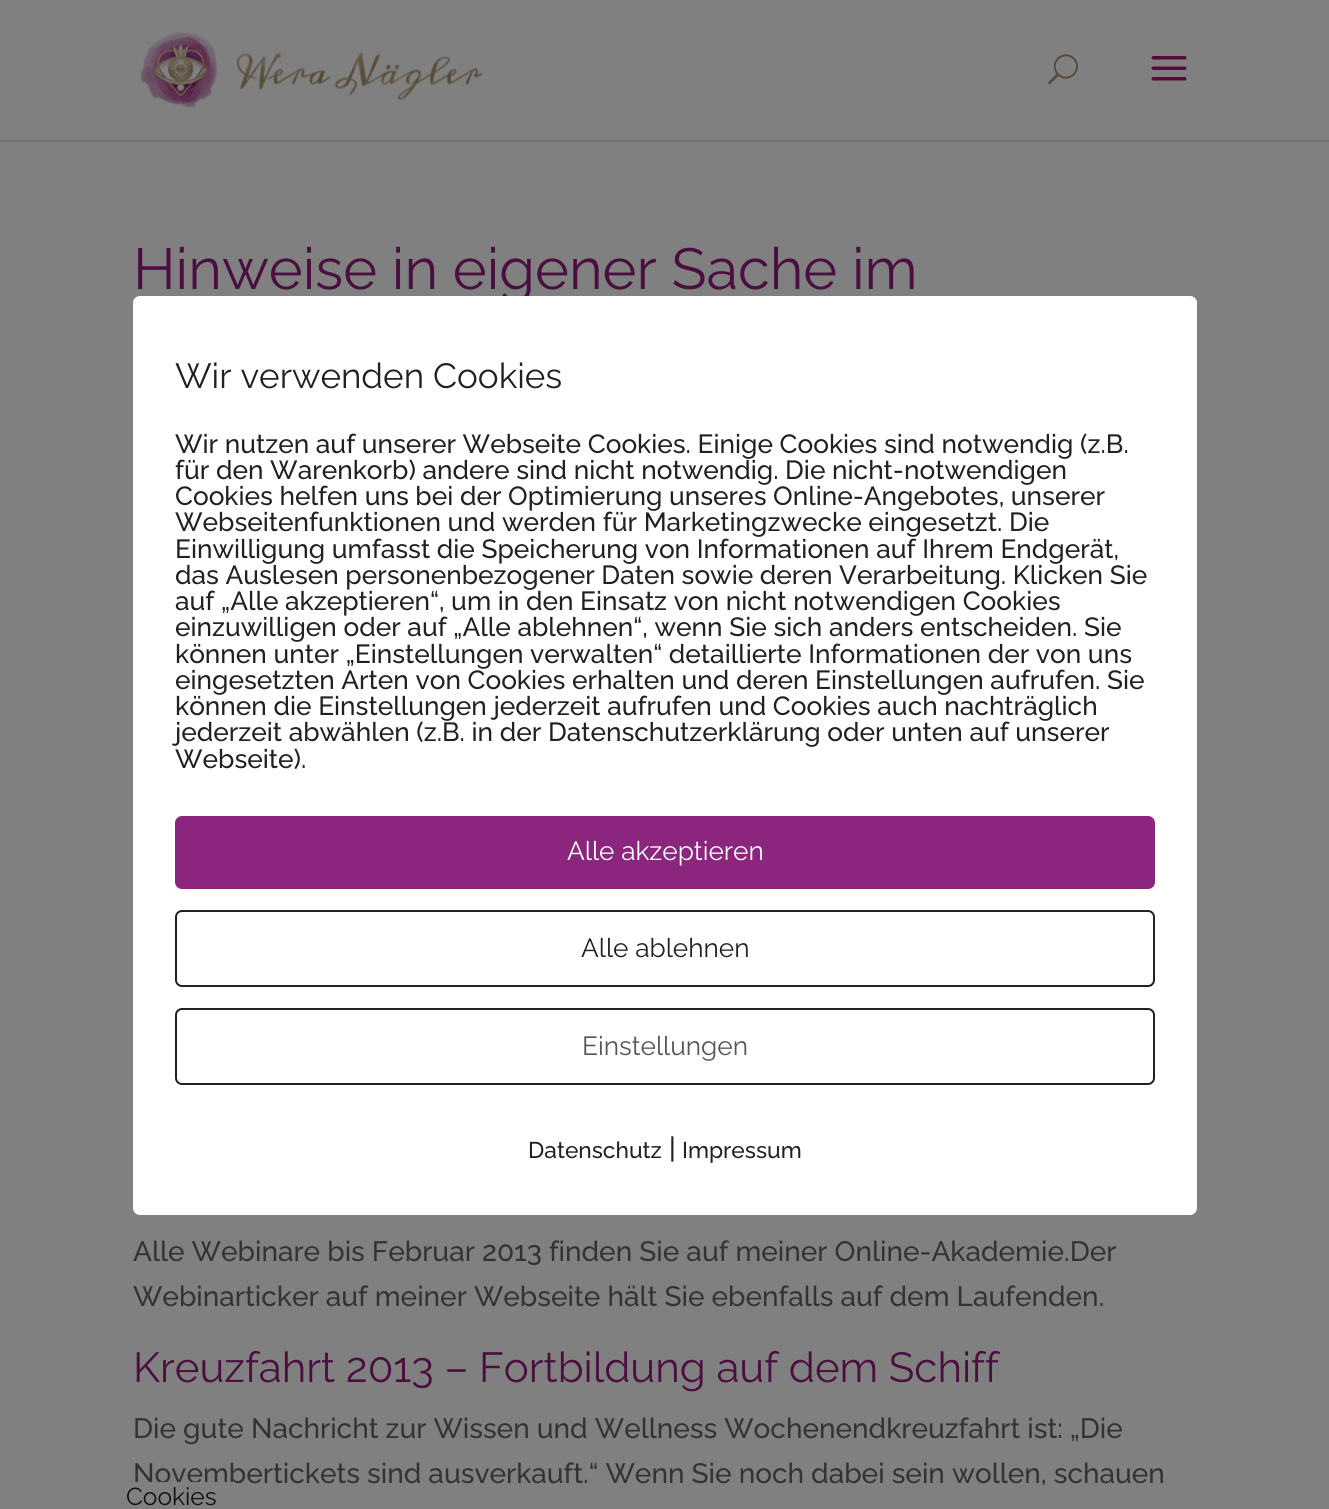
import math
import cairo

surface = cairo.ImageSurface(cairo.FORMAT_RGB24, 1329, 1509)
ctx = cairo.Context(surface)
options = cairo.FontOptions()
options.set_hint_metrics(cairo.HINT_METRICS_OFF)
options.set_hint_style(cairo.HINT_STYLE_NONE)
ctx.set_font_options(options)
ctx.set_miter_limit(4)


def round_rect(x, y, w, h, r):
    ctx.new_sub_path()
    for i, (u, v) in enumerate([(x + w - r, y + h - r), (x + r, y + h - r), (x + r, y + r), (x + w - r, y + r)]):
        ctx.arc(u, v, r, i * math.pi / 2, (i + 1) * math.pi / 2)
    ctx.close_path()


def picture(path, x, y, w, h):
    ctx.save()
    ctx.set_source_surface(cairo.ImageSurface.create_from_png(path), x, y)
    ctx.rectangle(x, y, w, h)
    ctx.fill()
    ctx.restore()


ctx.set_source_rgb(0.502, 0.502, 0.502)
ctx.paint()
ctx.set_source_rgb(0.451, 0.451, 0.451)
ctx.rectangle(0, 140, 1329, 2)
ctx.fill()
picture("img1.png", 140, 31, 343, 77)
picture("img2.png", 1048, 54, 30, 31)
picture("img3.png", 1151, 56, 36, 25)
ctx.select_font_face("Raleway Thin")
ctx.set_font_size(57.75)
ctx.set_source_rgb(0.29, 0.055, 0.251)
ctx.move_to(133, 289)
ctx.show_text("Hinweise in eigener Sache im")
ctx.select_font_face("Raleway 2 Thin")
ctx.set_font_size(28)
ctx.set_source_rgb(0.2, 0.2, 0.2)
ctx.move_to(133, 1261)
ctx.show_text("Alle Webinare bis Februar 2013 finden Sie auf meiner Online-Akademie.Der")
ctx.move_to(133, 1306)
ctx.show_text("Webinarticker auf meiner Webseite hält Sie ebenfalls auf dem Laufenden.")
ctx.select_font_face("Raleway Thin")
ctx.set_font_size(42)
ctx.set_source_rgb(0.29, 0.055, 0.251)
ctx.move_to(133, 1382)
ctx.show_text("Kreuzfahrt 2013 – Fortbildung auf dem Schiff")
ctx.select_font_face("Raleway 2 Thin")
ctx.set_font_size(28)
ctx.set_source_rgb(0.2, 0.2, 0.2)
ctx.move_to(133, 1438)
ctx.show_text("Die gute Nachricht zur Wissen und Wellness Wochenendkreuzfahrt ist: „Die")
ctx.move_to(133, 1483)
ctx.show_text("Novembertickets sind ausverkauft.“ Wenn Sie noch dabei sein wollen, schauen")
ctx.set_source_rgb(1, 1, 1)
round_rect(133, 296, 1064, 919, 7)
ctx.fill()
ctx.select_font_face("Raleway Thin")
ctx.set_font_size(35)
ctx.set_source_rgb(0.129, 0.129, 0.129)
ctx.move_to(175, 388)
ctx.show_text("Wir verwenden Cookies")
ctx.select_font_face("Raleway 2 Thin")
ctx.set_font_size(26.25)
ctx.move_to(175, 453)
ctx.show_text("Wir nutzen auf unserer Webseite Cookies. Einige Cookies sind notwendig (z.B.")
ctx.move_to(175, 479)
ctx.show_text("für den Warenkorb) andere sind nicht notwendig. Die nicht-notwendigen")
ctx.move_to(175, 505)
ctx.show_text("Cookies helfen uns bei der Optimierung unseres Online-Angebotes, unserer")
ctx.move_to(175, 531)
ctx.show_text("Webseitenfunktionen und werden für Marketingzwecke eingesetzt. Die")
ctx.move_to(175, 558)
ctx.show_text("Einwilligung umfasst die Speicherung von Informationen auf Ihrem Endgerät,")
ctx.move_to(175, 584)
ctx.show_text("das Auslesen personenbezogener Daten sowie deren Verarbeitung. Klicken Sie")
ctx.move_to(175, 610)
ctx.show_text("auf „Alle akzeptieren“, um in den Einsatz von nicht notwendigen Cookies")
ctx.move_to(175, 636)
ctx.show_text("einzuwilligen oder auf „Alle ablehnen“, wenn Sie sich anders entscheiden. Sie")
ctx.move_to(175, 663)
ctx.show_text("können unter „Einstellungen verwalten“ detaillierte Informationen der von uns")
ctx.move_to(175, 689)
ctx.show_text("eingesetzten Arten von Cookies erhalten und deren Einstellungen aufrufen. Sie")
ctx.move_to(175, 715)
ctx.show_text("können die Einstellungen jederzeit aufrufen und Cookies auch nachträglich")
ctx.move_to(175, 741)
ctx.show_text("jederzeit abwählen (z.B. in der Datenschutzerklärung oder unten auf unserer")
ctx.move_to(175, 768)
ctx.show_text("Webseite).")
ctx.set_source_rgb(0.545, 0.145, 0.494)
round_rect(175, 816, 980, 73, 7)
ctx.fill()
ctx.select_font_face("Raleway Thin")
ctx.set_source_rgb(1, 1, 1)
ctx.move_to(567, 860)
ctx.show_text("Alle akzeptieren")
round_rect(176, 911, 978, 75, 6)
ctx.set_source_rgb(0.129, 0.129, 0.129)
ctx.stroke()
ctx.move_to(581, 957)
ctx.show_text("Alle ablehnen")
round_rect(176, 1009, 978, 75, 6)
ctx.stroke()
ctx.set_source_rgb(0.333, 0.333, 0.333)
ctx.move_to(582, 1055)
ctx.show_text("Einstellungen")
ctx.select_font_face("Raleway 2 Thin")
ctx.set_font_size(22.75)
ctx.set_source_rgb(0.129, 0.129, 0.129)
ctx.move_to(528, 1158)
ctx.show_text("Datenschutz")
ctx.set_font_size(28)
ctx.move_to(669, 1158)
ctx.show_text("|")
ctx.set_font_size(22.75)
ctx.move_to(682, 1158)
ctx.show_text("Impressum")
ctx.set_source_rgb(0.502, 0.502, 0.502)
ctx.new_path()
ctx.move_to(112, 1482)
ctx.line_to(231, 1482)
ctx.curve_to(235, 1482, 238, 1485, 238, 1489)
ctx.line_to(238, 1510)
ctx.line_to(105, 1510)
ctx.line_to(105, 1489)
ctx.curve_to(105, 1485, 108, 1482, 112, 1482)
ctx.close_path()
ctx.fill()
ctx.select_font_face("Raleway Thin")
ctx.set_font_size(24.5)
ctx.set_source_rgb(0.067, 0.067, 0.067)
ctx.move_to(126, 1505)
ctx.show_text("Cookies")
surface.write_to_png("page.png")
